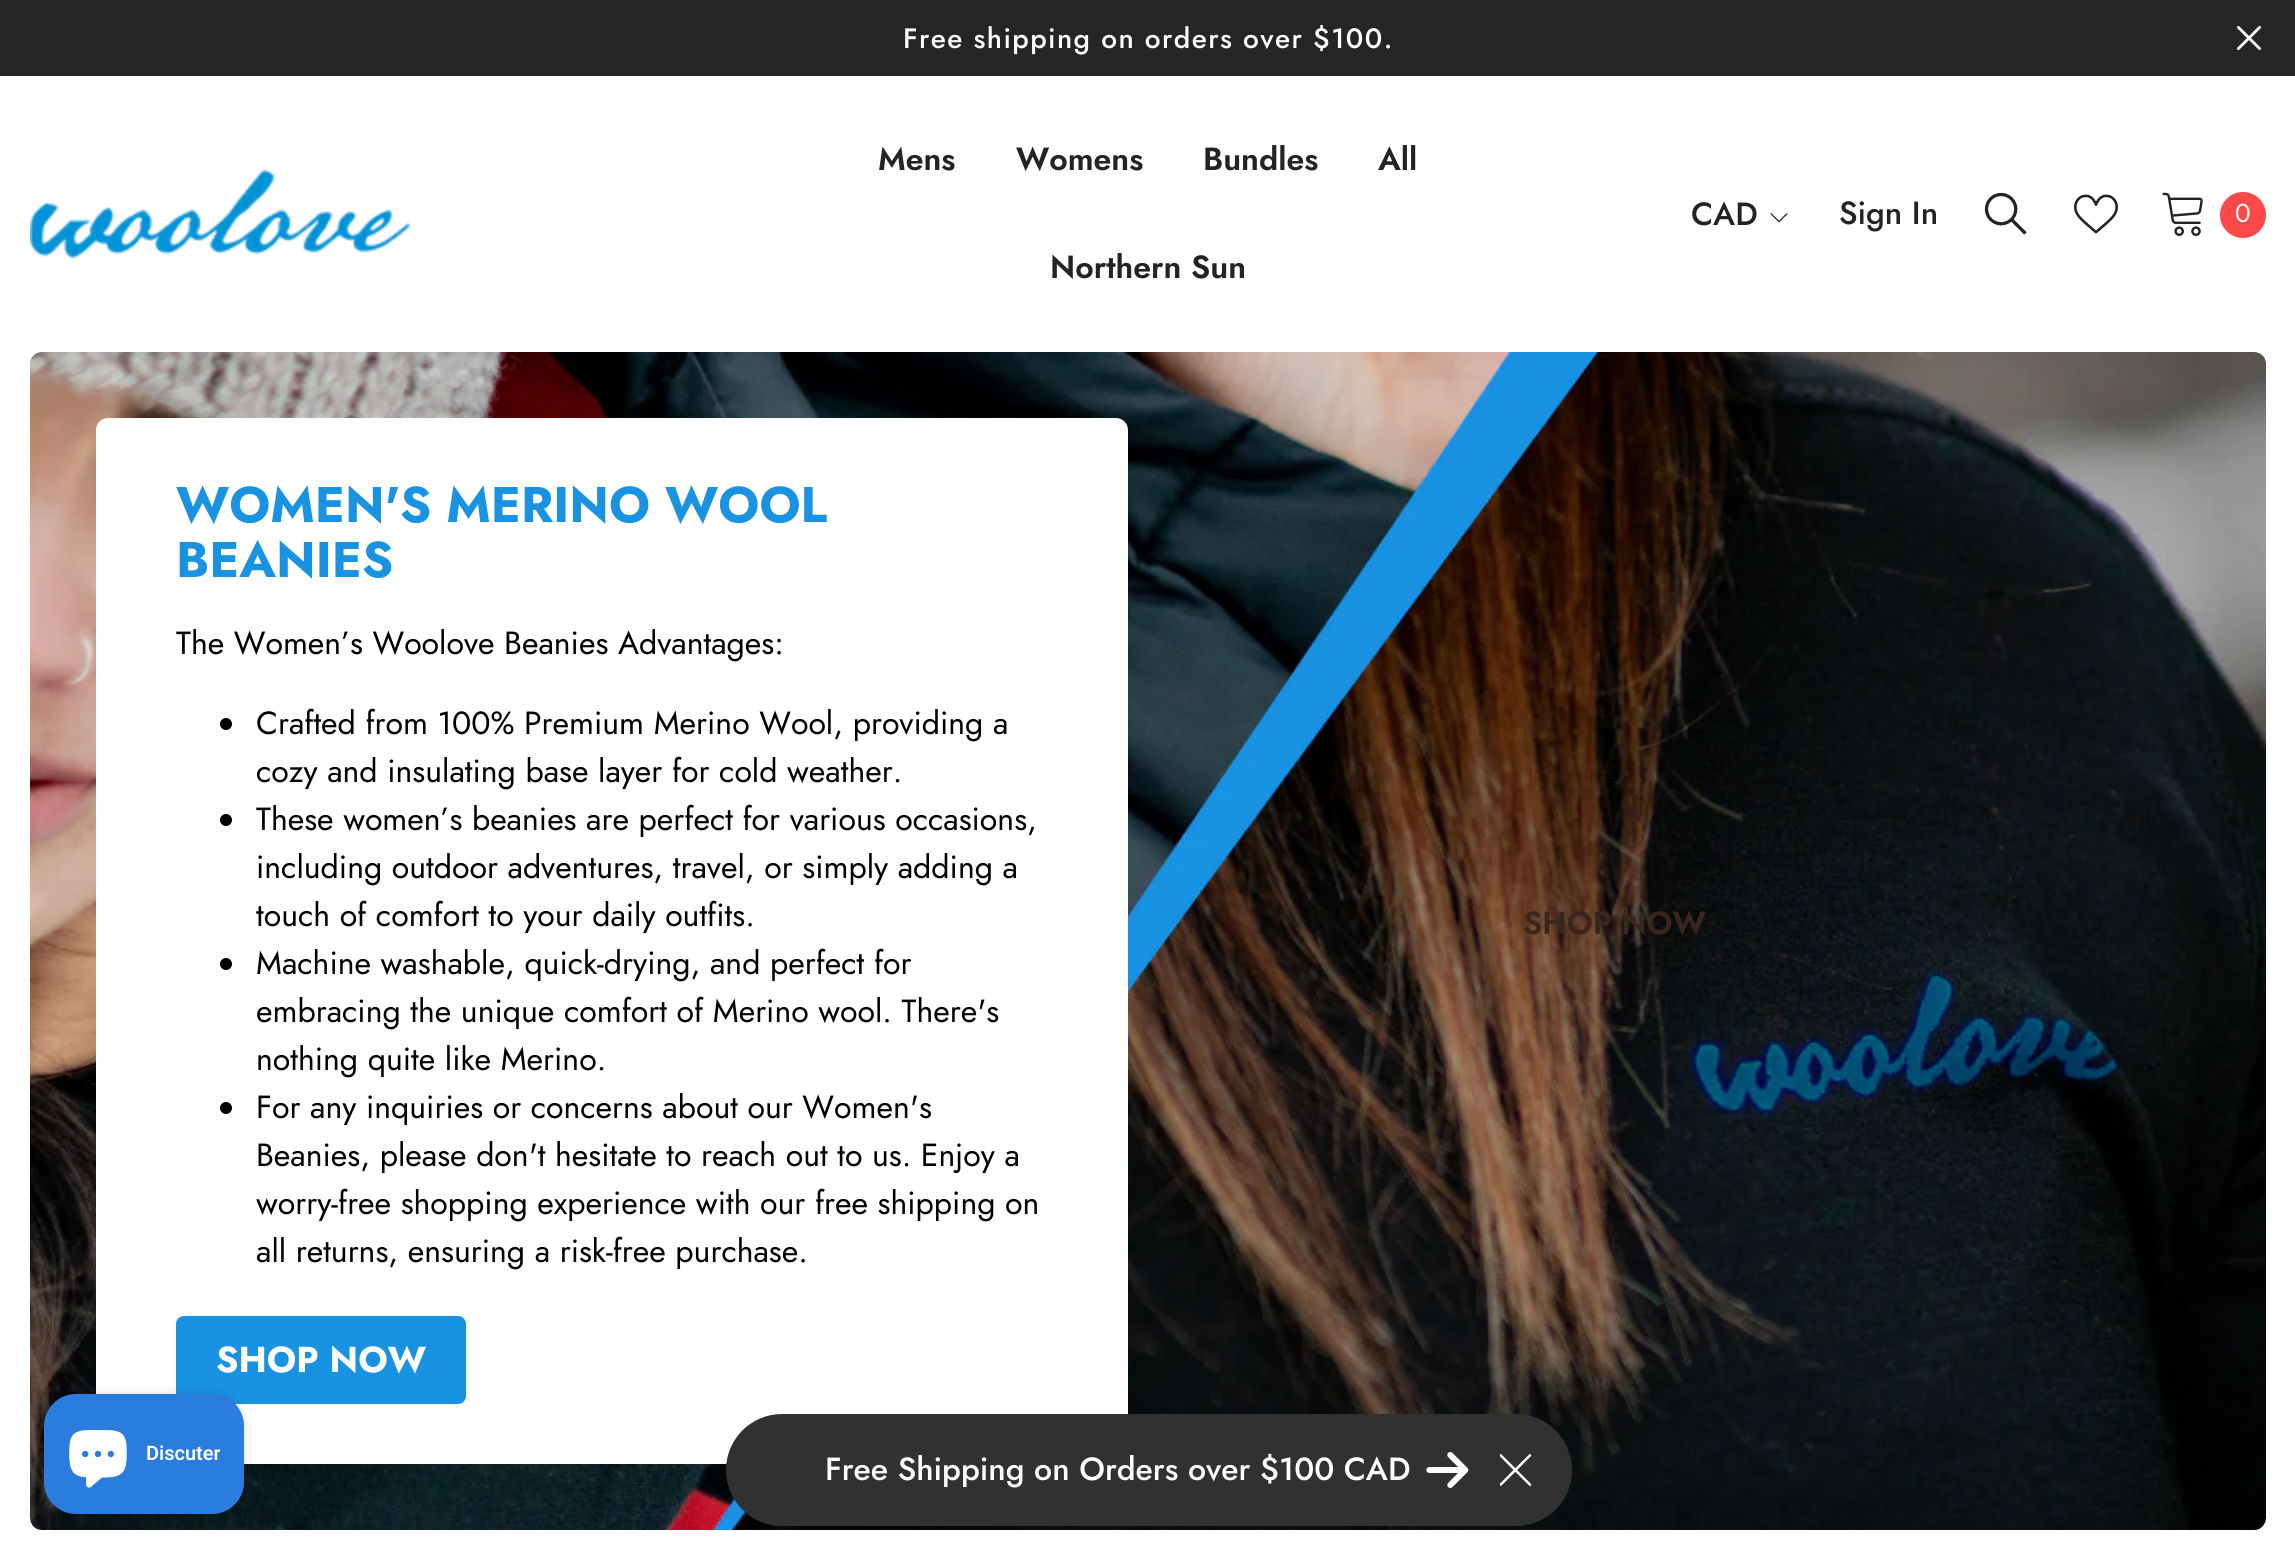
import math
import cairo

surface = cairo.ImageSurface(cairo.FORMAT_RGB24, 2295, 1556)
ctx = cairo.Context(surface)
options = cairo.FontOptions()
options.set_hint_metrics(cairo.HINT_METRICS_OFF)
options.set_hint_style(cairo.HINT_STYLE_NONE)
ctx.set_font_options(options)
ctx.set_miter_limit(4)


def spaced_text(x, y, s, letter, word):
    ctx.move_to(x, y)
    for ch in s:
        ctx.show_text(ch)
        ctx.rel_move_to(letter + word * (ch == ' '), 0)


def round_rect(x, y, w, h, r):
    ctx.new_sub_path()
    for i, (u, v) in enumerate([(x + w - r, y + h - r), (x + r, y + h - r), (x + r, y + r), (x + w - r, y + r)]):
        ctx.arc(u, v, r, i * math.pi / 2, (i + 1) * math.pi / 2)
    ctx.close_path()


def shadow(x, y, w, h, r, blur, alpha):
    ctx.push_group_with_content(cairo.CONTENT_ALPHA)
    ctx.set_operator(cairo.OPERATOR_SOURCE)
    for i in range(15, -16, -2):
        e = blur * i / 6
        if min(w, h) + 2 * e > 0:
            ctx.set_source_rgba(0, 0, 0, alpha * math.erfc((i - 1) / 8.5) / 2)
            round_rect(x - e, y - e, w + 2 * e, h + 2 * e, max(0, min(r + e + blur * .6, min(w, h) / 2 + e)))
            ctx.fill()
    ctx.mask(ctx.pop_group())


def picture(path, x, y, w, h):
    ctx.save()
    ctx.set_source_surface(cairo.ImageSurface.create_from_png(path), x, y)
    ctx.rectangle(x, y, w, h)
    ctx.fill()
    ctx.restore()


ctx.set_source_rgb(1, 1, 1)
ctx.paint()
ctx.set_source_rgb(0.145, 0.145, 0.145)
ctx.rectangle(0, 0, 2295, 76)
ctx.fill()
ctx.select_font_face("Jost Medium")
ctx.set_font_size(28)
ctx.set_source_rgb(1, 1, 1)
spaced_text(903, 48, "Free shipping on orders over $100.", 1.4, 0)
picture("img1.png", 2237, 26, 24, 24)
picture("img2.png", 30, 352, 2236, 1178)
round_rect(96, 418, 1032, 1046, 12)
ctx.fill()
ctx.select_font_face("Jost", cairo.FONT_SLANT_NORMAL, cairo.FONT_WEIGHT_BOLD)
ctx.set_font_size(50)
ctx.set_source_rgb(0.098, 0.573, 0.886)
ctx.move_to(176, 522)
ctx.show_text("WOMEN'S MERINO WOOL")
ctx.move_to(176, 577)
ctx.show_text("BEANIES")
ctx.select_font_face("Jost")
ctx.set_font_size(32)
ctx.set_source_rgb(0, 0, 0)
ctx.move_to(176, 654)
ctx.show_text("The Women’s Woolove Beanies Advantages:")
ctx.new_path()
ctx.arc(226, 724, 6, 0, 2 * math.pi)
ctx.fill()
ctx.move_to(256, 734)
ctx.show_text("Crafted from 100% Premium Merino Wool, providing a")
ctx.move_to(256, 782)
ctx.show_text("cozy and insulating base layer for cold weather.")
ctx.new_path()
ctx.arc(226, 820, 6, 0, 2 * math.pi)
ctx.fill()
ctx.move_to(256, 830)
ctx.show_text("These women’s beanies are perfect for various occasions,")
ctx.move_to(256, 878)
ctx.show_text("including outdoor adventures, travel, or simply adding a")
ctx.move_to(256, 926)
ctx.show_text("touch of comfort to your daily outfits.")
ctx.new_path()
ctx.arc(226, 964, 6, 0, 2 * math.pi)
ctx.fill()
ctx.move_to(256, 974)
ctx.show_text("Machine washable, quick-drying, and perfect for")
ctx.move_to(256, 1022)
ctx.show_text("embracing the unique comfort of Merino wool. There's")
ctx.move_to(256, 1070)
ctx.show_text("nothing quite like Merino.")
ctx.new_path()
ctx.arc(226, 1108, 6, 0, 2 * math.pi)
ctx.fill()
ctx.move_to(256, 1118)
ctx.show_text("For any inquiries or concerns about our Women's")
ctx.move_to(256, 1166)
ctx.show_text("Beanies, please don't hesitate to reach out to us. Enjoy a")
ctx.move_to(256, 1214)
ctx.show_text("worry-free shopping experience with our free shipping on")
ctx.move_to(256, 1262)
ctx.show_text("all returns, ensuring a risk-free purchase.")
ctx.set_source_rgb(0.098, 0.573, 0.886)
round_rect(176, 1316, 290, 88, 8)
ctx.fill()
ctx.select_font_face("Jost", cairo.FONT_SLANT_NORMAL, cairo.FONT_WEIGHT_BOLD)
ctx.set_font_size(36)
ctx.set_source_rgb(1, 1, 1)
ctx.move_to(216, 1372)
ctx.show_text("SHOP NOW")
picture("img3.png", 30, 170, 380, 88)
ctx.select_font_face("Jost SemiBold")
ctx.set_font_size(32)
ctx.set_source_rgb(0.137, 0.137, 0.137)
ctx.move_to(1203, 170)
ctx.show_text("Bundles")
ctx.move_to(1378, 170)
ctx.show_text("All")
ctx.move_to(878, 170)
ctx.show_text("Mens")
ctx.set_source_rgb(0.224, 0.153, 0.114)
ctx.move_to(1523, 934)
ctx.show_text("SHOP NOW")
ctx.set_source_rgb(0.137, 0.137, 0.137)
ctx.move_to(1016, 170)
ctx.show_text("Womens")
ctx.move_to(1050, 278)
ctx.show_text("Northern Sun")
ctx.select_font_face("Jost Medium")
ctx.move_to(1691, 225)
ctx.show_text("CAD")
picture("img4.png", 1770, 213, 18, 10)
ctx.move_to(1839, 224)
ctx.show_text("Sign In")
picture("img5.png", 1984, 192, 43, 43)
picture("img6.png", 2074, 194, 44, 40)
picture("img7.png", 2162, 192, 41, 44)
ctx.set_source_rgb(0.992, 0.286, 0.286)
ctx.arc(2243, 215, 23, 0, 2 * math.pi)
ctx.fill()
ctx.select_font_face("Jost")
ctx.set_font_size(26)
ctx.set_source_rgb(1, 1, 1)
ctx.move_to(2235, 222)
ctx.show_text("0")
ctx.set_source_rgb(0, 0, 0)
shadow(44, 1394, 200, 120, 32, 5, 0.15)
ctx.set_source_rgb(0.165, 0.486, 0.875)
round_rect(44, 1394, 200, 120, 32)
ctx.fill()
picture("img8.png", 69, 1430, 58, 58)
ctx.save()
ctx.rectangle(146, 1424, 74, 60)
ctx.clip()
ctx.select_font_face("Roboto SemiBold")
ctx.set_font_size(20)
ctx.set_source_rgb(1, 1, 1)
ctx.move_to(146, 1460)
ctx.show_text("Discuter")
ctx.restore()
ctx.set_source_rgb(0.192, 0.192, 0.192)
round_rect(726, 1414, 846, 112, 56)
ctx.fill()
ctx.select_font_face("Jost Medium")
ctx.set_font_size(32)
ctx.set_source_rgb(1, 1, 1)
ctx.move_to(825, 1480)
ctx.show_text("Free Shipping on Orders over $100 CAD")
picture("img9.png", 1426, 1452, 43, 36)
picture("img10.png", 1500, 1454, 32, 32)
surface.write_to_png("page.png")
